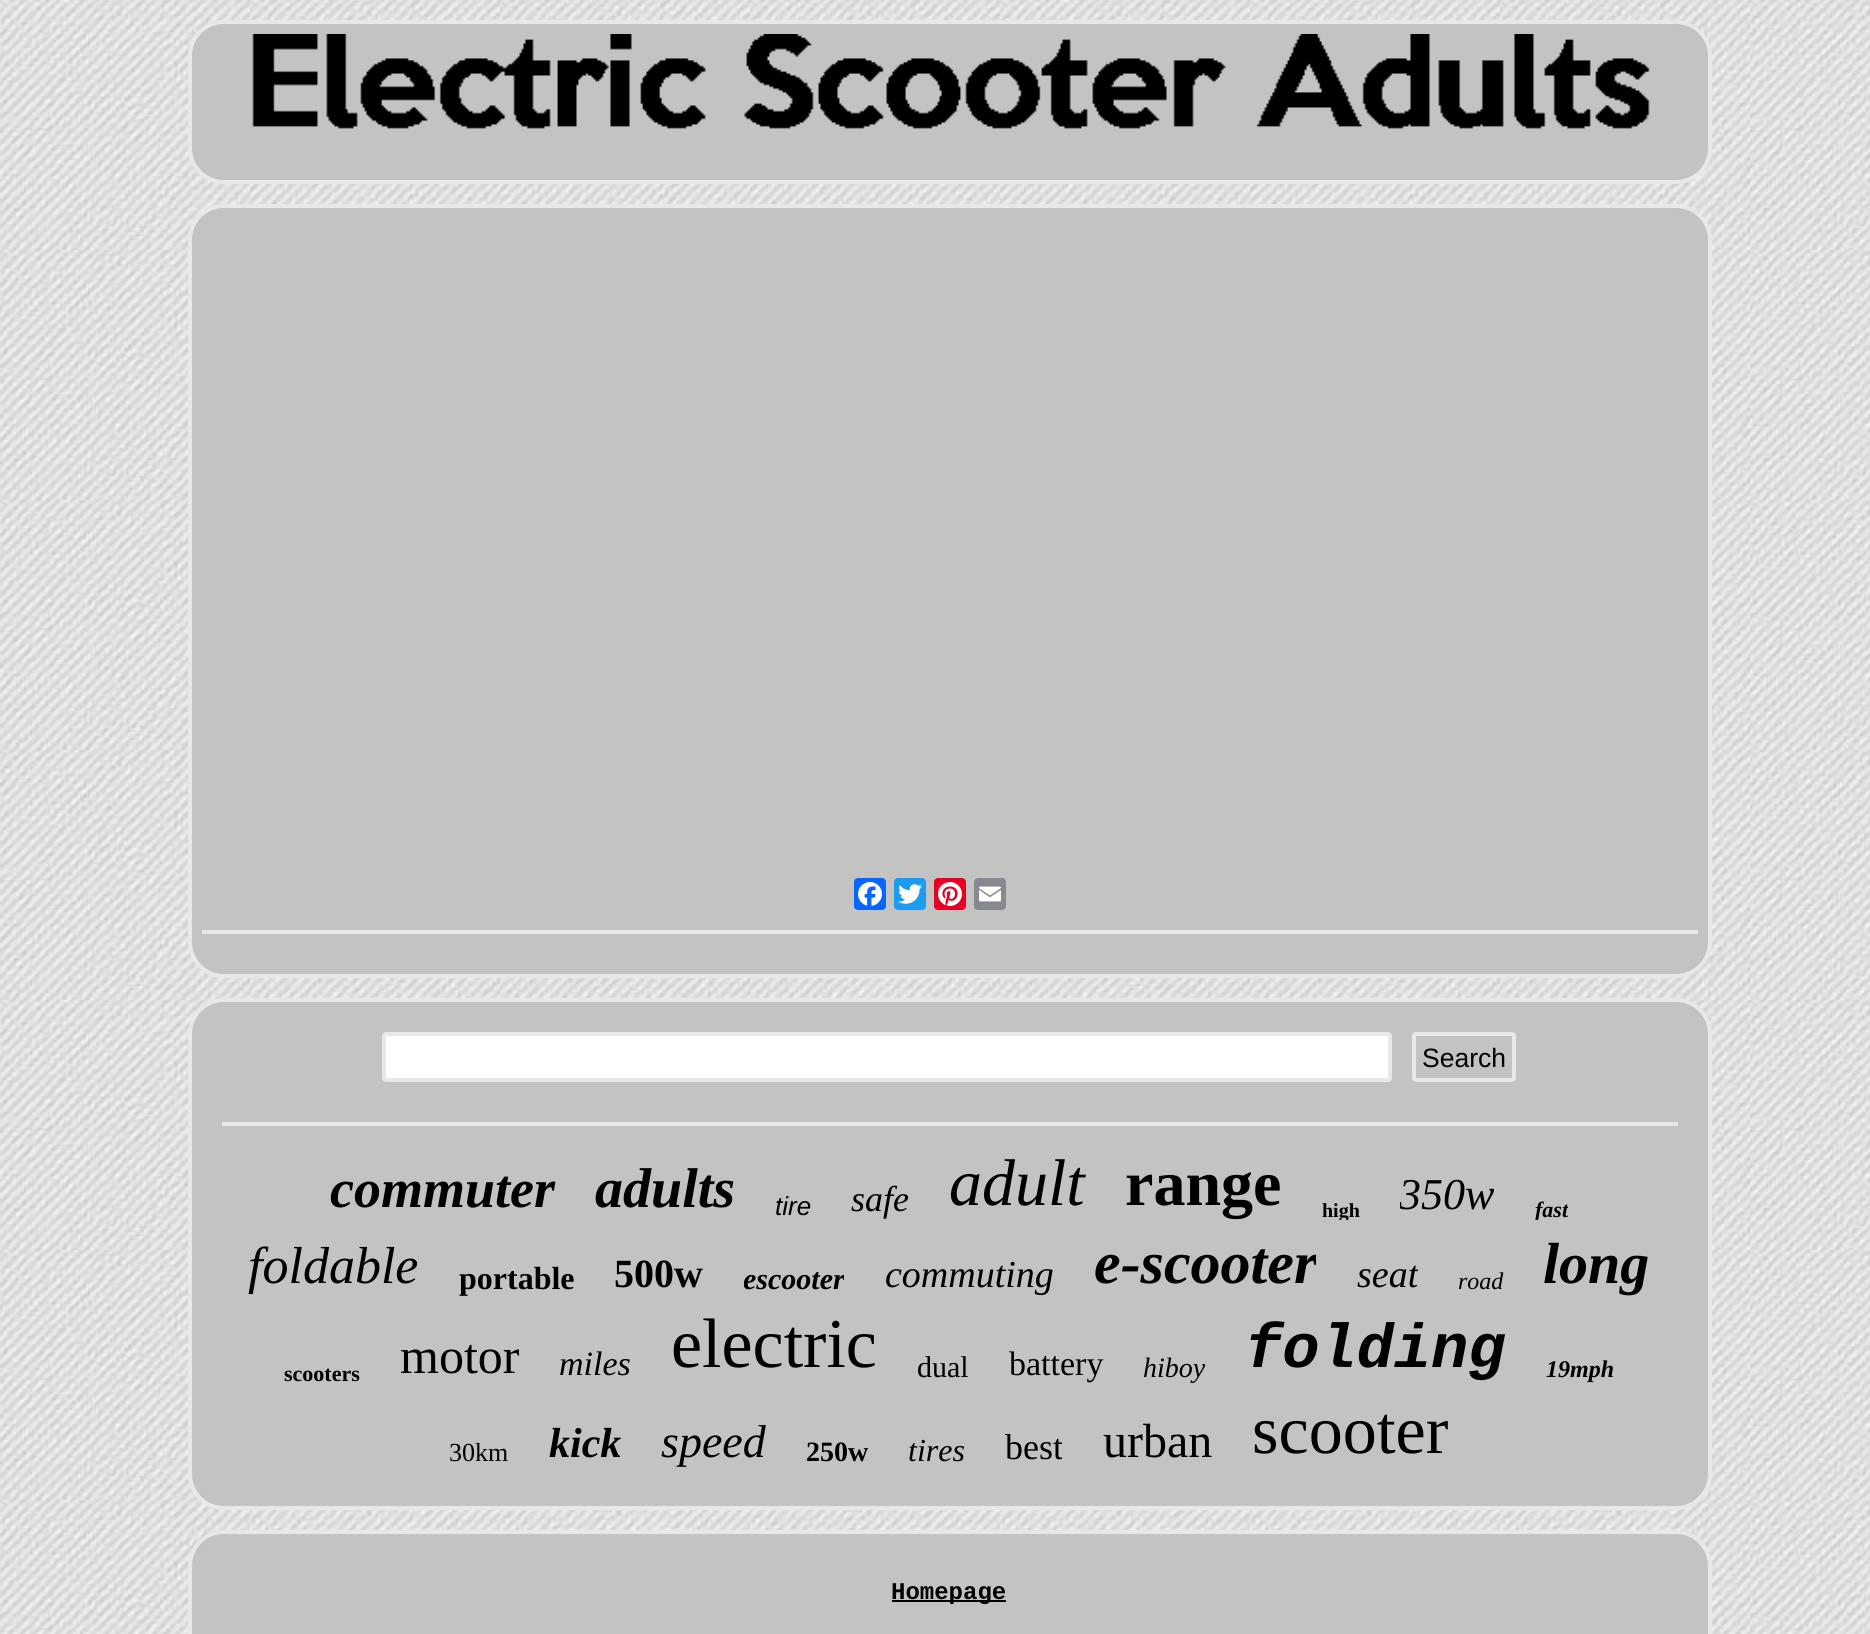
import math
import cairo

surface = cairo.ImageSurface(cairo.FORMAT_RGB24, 1870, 1634)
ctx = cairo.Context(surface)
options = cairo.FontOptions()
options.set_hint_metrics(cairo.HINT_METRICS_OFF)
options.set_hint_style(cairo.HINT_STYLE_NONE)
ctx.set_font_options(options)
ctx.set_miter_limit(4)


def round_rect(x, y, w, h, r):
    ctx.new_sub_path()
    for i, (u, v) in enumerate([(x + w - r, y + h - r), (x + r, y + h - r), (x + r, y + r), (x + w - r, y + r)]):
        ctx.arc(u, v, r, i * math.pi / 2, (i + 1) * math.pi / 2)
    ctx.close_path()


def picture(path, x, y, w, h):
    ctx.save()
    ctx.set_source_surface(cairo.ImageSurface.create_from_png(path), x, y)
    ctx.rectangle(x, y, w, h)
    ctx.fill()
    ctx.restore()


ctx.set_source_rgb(1, 1, 1)
ctx.paint()
picture("img1.png", 0, 0, 1870, 1634)
ctx.set_source_rgb(0.765, 0.765, 0.757)
round_rect(190, 22, 1520, 160, 34)
ctx.fill_preserve()
ctx.set_source_rgb(0.91, 0.91, 0.902)
ctx.set_line_width(4)
ctx.stroke()
picture("img2.png", 252, 34, 1398, 95)
ctx.set_source_rgb(0.765, 0.765, 0.757)
round_rect(190, 206, 1520, 770, 34)
ctx.fill_preserve()
ctx.set_source_rgb(0.91, 0.91, 0.902)
ctx.stroke()
ctx.set_source_rgb(0.031, 0.4, 1)
round_rect(854, 878, 32, 32, 4)
ctx.fill()
picture("img3.png", 858, 882, 24, 24)
ctx.set_source_rgb(0.114, 0.608, 0.941)
round_rect(894, 878, 32, 32, 4)
ctx.fill()
picture("img4.png", 898, 884, 24, 20)
ctx.set_source_rgb(0.902, 0, 0.137)
round_rect(934, 878, 32, 32, 4)
ctx.fill()
picture("img5.png", 938, 882, 24, 24)
ctx.set_source_rgb(0.533, 0.537, 0.565)
round_rect(974, 878, 32, 32, 4)
ctx.fill()
picture("img6.png", 979, 886, 22, 16)
ctx.set_source_rgb(0.91, 0.91, 0.902)
ctx.rectangle(202, 930, 1496, 4)
ctx.fill()
ctx.set_source_rgb(0.765, 0.765, 0.757)
round_rect(190, 1000, 1520, 508, 34)
ctx.fill_preserve()
ctx.set_source_rgb(0.91, 0.91, 0.902)
ctx.stroke()
ctx.set_source_rgb(1, 1, 1)
round_rect(384, 1034, 1006, 46, 2)
ctx.fill_preserve()
ctx.set_source_rgb(0.91, 0.91, 0.902)
ctx.stroke()
round_rect(1414, 1034, 100, 46, 2)
ctx.stroke()
ctx.select_font_face("Liberation Sans")
ctx.set_font_size(26.5)
ctx.set_source_rgb(0, 0, 0)
ctx.move_to(1422, 1067)
ctx.show_text("Search")
ctx.set_source_rgb(0.91, 0.91, 0.902)
ctx.rectangle(222, 1122, 1456, 4)
ctx.fill()
ctx.select_font_face("Liberation Serif", cairo.FONT_SLANT_ITALIC, cairo.FONT_WEIGHT_BOLD)
ctx.set_font_size(54)
ctx.set_source_rgb(0, 0, 0)
ctx.move_to(330, 1207)
ctx.show_text("commuter")
ctx.set_font_size(56)
ctx.move_to(595, 1207)
ctx.show_text("adults")
ctx.select_font_face("Liberation Sans", cairo.FONT_SLANT_ITALIC)
ctx.set_font_size(26)
ctx.move_to(775, 1215)
ctx.show_text("tire")
ctx.select_font_face("Liberation Serif", cairo.FONT_SLANT_ITALIC)
ctx.set_font_size(36)
ctx.move_to(851, 1211)
ctx.show_text("safe")
ctx.save()
ctx.rectangle(950, 1146, 136, 74)
ctx.clip()
ctx.set_font_size(66)
ctx.move_to(949, 1205)
ctx.show_text("adult")
ctx.restore()
ctx.select_font_face("Liberation Serif", cairo.FONT_SLANT_NORMAL, cairo.FONT_WEIGHT_BOLD)
ctx.set_font_size(64)
ctx.move_to(1125, 1205)
ctx.show_text("range")
ctx.save()
ctx.rectangle(1322, 1198, 38, 22)
ctx.clip()
ctx.set_font_size(20)
ctx.move_to(1322, 1217)
ctx.show_text("high")
ctx.restore()
ctx.save()
ctx.rectangle(1400, 1168, 94, 52)
ctx.clip()
ctx.select_font_face("Liberation Serif", cairo.FONT_SLANT_ITALIC)
ctx.set_font_size(44)
ctx.move_to(1399, 1209)
ctx.show_text("350w")
ctx.restore()
ctx.save()
ctx.rectangle(1534, 1196, 34, 24)
ctx.clip()
ctx.select_font_face("Liberation Serif", cairo.FONT_SLANT_ITALIC, cairo.FONT_WEIGHT_BOLD)
ctx.set_font_size(22)
ctx.move_to(1535, 1217)
ctx.show_text("fast")
ctx.restore()
ctx.select_font_face("Liberation Serif", cairo.FONT_SLANT_ITALIC)
ctx.set_font_size(52)
ctx.move_to(248, 1283)
ctx.show_text("foldable")
ctx.select_font_face("Liberation Serif", cairo.FONT_SLANT_NORMAL, cairo.FONT_WEIGHT_BOLD)
ctx.set_font_size(32)
ctx.move_to(459, 1289)
ctx.show_text("portable")
ctx.set_font_size(40)
ctx.move_to(614, 1287)
ctx.show_text("500w")
ctx.save()
ctx.rectangle(744, 1262, 100, 34)
ctx.clip()
ctx.select_font_face("Liberation Serif", cairo.FONT_SLANT_ITALIC, cairo.FONT_WEIGHT_BOLD)
ctx.set_font_size(30)
ctx.move_to(743, 1289)
ctx.show_text("escooter")
ctx.restore()
ctx.select_font_face("Liberation Serif", cairo.FONT_SLANT_ITALIC)
ctx.set_font_size(38)
ctx.move_to(885, 1287)
ctx.show_text("commuting")
ctx.save()
ctx.rectangle(1094, 1228, 222, 68)
ctx.clip()
ctx.select_font_face("Liberation Serif", cairo.FONT_SLANT_ITALIC, cairo.FONT_WEIGHT_BOLD)
ctx.set_font_size(60)
ctx.move_to(1094, 1283)
ctx.show_text("e-scooter")
ctx.restore()
ctx.save()
ctx.rectangle(1356, 1252, 62, 44)
ctx.clip()
ctx.move_to(1357, 1287)
ctx.show_text("seat")
ctx.restore()
ctx.set_font_size(24)
ctx.move_to(1458, 1289)
ctx.show_text("road")
ctx.select_font_face("Liberation Serif", cairo.FONT_SLANT_ITALIC, cairo.FONT_WEIGHT_BOLD)
ctx.set_font_size(58)
ctx.move_to(1543, 1283)
ctx.show_text("long")
ctx.select_font_face("Liberation Serif", cairo.FONT_SLANT_NORMAL, cairo.FONT_WEIGHT_BOLD)
ctx.set_font_size(22)
ctx.move_to(284, 1381)
ctx.show_text("scooters")
ctx.select_font_face("Liberation Serif")
ctx.set_font_size(50)
ctx.move_to(400, 1373)
ctx.show_text("motor")
ctx.select_font_face("Liberation Serif", cairo.FONT_SLANT_ITALIC)
ctx.set_font_size(34)
ctx.move_to(559, 1375)
ctx.show_text("miles")
ctx.select_font_face("Liberation Serif")
ctx.set_font_size(70)
ctx.move_to(671, 1367)
ctx.show_text("electric")
ctx.set_font_size(30)
ctx.move_to(917, 1377)
ctx.show_text("dual")
ctx.set_font_size(34)
ctx.move_to(1009, 1375)
ctx.show_text("battery")
ctx.select_font_face("Liberation Serif", cairo.FONT_SLANT_ITALIC)
ctx.set_font_size(28)
ctx.move_to(1143, 1377)
ctx.show_text("hiboy")
ctx.select_font_face("Liberation Mono", cairo.FONT_SLANT_ITALIC, cairo.FONT_WEIGHT_BOLD)
ctx.set_font_size(62)
ctx.move_to(1245, 1367)
ctx.show_text("folding")
ctx.select_font_face("Liberation Serif", cairo.FONT_SLANT_ITALIC, cairo.FONT_WEIGHT_BOLD)
ctx.set_font_size(24)
ctx.move_to(1546, 1377)
ctx.show_text("19mph")
ctx.select_font_face("Liberation Serif")
ctx.set_font_size(26)
ctx.move_to(449, 1461)
ctx.show_text("30km")
ctx.select_font_face("Liberation Serif", cairo.FONT_SLANT_ITALIC, cairo.FONT_WEIGHT_BOLD)
ctx.set_font_size(42)
ctx.move_to(549, 1457)
ctx.show_text("kick")
ctx.select_font_face("Liberation Serif", cairo.FONT_SLANT_ITALIC)
ctx.set_font_size(46)
ctx.move_to(661, 1457)
ctx.show_text("speed")
ctx.select_font_face("Liberation Serif", cairo.FONT_SLANT_NORMAL, cairo.FONT_WEIGHT_BOLD)
ctx.set_font_size(28)
ctx.move_to(806, 1461)
ctx.show_text("250w")
ctx.select_font_face("Liberation Serif", cairo.FONT_SLANT_ITALIC)
ctx.set_font_size(32)
ctx.move_to(908, 1461)
ctx.show_text("tires")
ctx.save()
ctx.rectangle(1004, 1426, 58, 42)
ctx.clip()
ctx.select_font_face("Liberation Serif")
ctx.set_font_size(36)
ctx.move_to(1005, 1459)
ctx.show_text("best")
ctx.restore()
ctx.select_font_face("Liberation Serif")
ctx.set_font_size(48)
ctx.move_to(1103, 1457)
ctx.show_text("urban")
ctx.set_font_size(68)
ctx.move_to(1252, 1453)
ctx.show_text("scooter")
ctx.set_source_rgb(0.765, 0.765, 0.757)
round_rect(190, 1532, 1520, 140, 34)
ctx.fill_preserve()
ctx.set_source_rgb(0.91, 0.91, 0.902)
ctx.stroke()
ctx.set_source_rgb(0, 0, 0)
ctx.rectangle(892, 1600, 114, 2)
ctx.fill()
ctx.select_font_face("Liberation Mono", cairo.FONT_SLANT_NORMAL, cairo.FONT_WEIGHT_BOLD)
ctx.set_font_size(24)
ctx.move_to(891, 1599)
ctx.show_text("Homepage")
surface.write_to_png("page.png")
